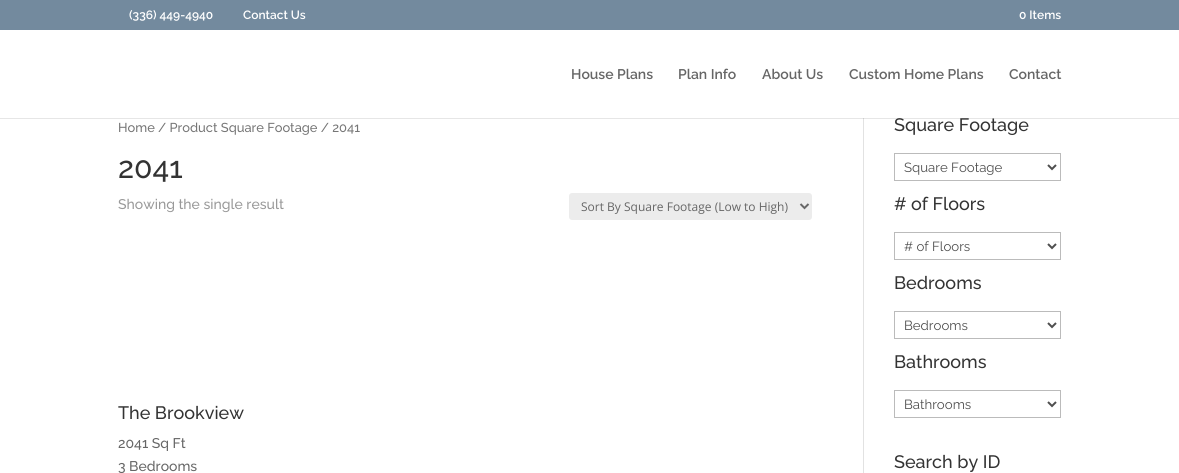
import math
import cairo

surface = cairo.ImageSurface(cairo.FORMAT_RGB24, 1179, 473)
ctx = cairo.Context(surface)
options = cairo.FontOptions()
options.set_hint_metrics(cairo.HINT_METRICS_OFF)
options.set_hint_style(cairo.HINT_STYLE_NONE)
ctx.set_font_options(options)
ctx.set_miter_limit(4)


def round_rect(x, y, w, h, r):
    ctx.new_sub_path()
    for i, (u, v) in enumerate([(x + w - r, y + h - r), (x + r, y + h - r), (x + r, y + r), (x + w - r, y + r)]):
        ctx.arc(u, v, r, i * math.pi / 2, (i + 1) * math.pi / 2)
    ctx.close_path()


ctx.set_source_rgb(1, 1, 1)
ctx.paint()
ctx.set_source_rgb(0.451, 0.541, 0.62)
ctx.rectangle(0, 0, 1179, 30)
ctx.fill()
ctx.select_font_face("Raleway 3 Thin")
ctx.set_font_size(12)
ctx.set_source_rgb(1, 1, 1)
ctx.move_to(129, 19)
ctx.show_text("(336) 449-4940")
ctx.move_to(243, 19)
ctx.show_text("Contact Us")
ctx.move_to(1019, 19)
ctx.show_text("0 Items")
ctx.set_source_rgb(0.886, 0.886, 0.886)
ctx.rectangle(863, 118, 1, 355)
ctx.fill()
ctx.set_source_rgba(0, 0, 0, 0.1)
ctx.rectangle(0, 118, 1179, 1)
ctx.fill()
ctx.set_font_size(14)
ctx.set_source_rgb(0.4, 0.4, 0.4)
ctx.move_to(571, 79)
ctx.show_text("House Plans")
ctx.move_to(678, 79)
ctx.show_text("Plan Info")
ctx.move_to(762, 79)
ctx.show_text("About Us")
ctx.move_to(849, 79)
ctx.show_text("Custom Home Plans")
ctx.move_to(1009, 79)
ctx.show_text("Contact")
ctx.select_font_face("Raleway Thin")
ctx.set_font_size(12.9)
ctx.set_source_rgb(0.463, 0.463, 0.463)
ctx.move_to(118, 132)
ctx.show_text("Home / Product Square Footage / 2041")
ctx.set_font_size(30)
ctx.set_source_rgb(0.2, 0.2, 0.2)
ctx.move_to(118, 178)
ctx.show_text("2041")
ctx.set_font_size(14)
ctx.set_source_rgb(0.6, 0.6, 0.6)
ctx.move_to(118, 209)
ctx.show_text("Showing the single result")
ctx.set_source_rgb(0.925, 0.925, 0.925)
round_rect(569, 193, 243, 27, 3)
ctx.fill()
ctx.new_path()
ctx.move_to(800.5, 204)
ctx.line_to(804.5, 208)
ctx.line_to(808.5, 204)
ctx.set_source_rgb(0.4, 0.4, 0.4)
ctx.stroke()
ctx.select_font_face("Open Sans")
ctx.set_font_size(12)
ctx.move_to(581, 211)
ctx.show_text("Sort By Square Footage (Low to High)")
ctx.select_font_face("Raleway Thin")
ctx.set_font_size(18)
ctx.set_source_rgb(0.2, 0.2, 0.2)
ctx.move_to(118, 419)
ctx.show_text("The Brookview")
ctx.set_font_size(14)
ctx.set_source_rgb(0.4, 0.4, 0.4)
ctx.move_to(118, 448)
ctx.show_text("2041 Sq Ft")
ctx.move_to(118, 471)
ctx.show_text("3 Bedrooms")
ctx.set_font_size(18)
ctx.set_source_rgb(0.2, 0.2, 0.2)
ctx.move_to(894, 131)
ctx.show_text("Square Footage")
ctx.rectangle(894.5, 153.5, 166, 27)
ctx.set_source_rgb(0.733, 0.733, 0.733)
ctx.set_line_width(1)
ctx.stroke()
ctx.new_path()
ctx.move_to(1048, 165)
ctx.line_to(1052, 169)
ctx.line_to(1056, 165)
ctx.set_source_rgb(0.306, 0.306, 0.306)
ctx.set_line_width(2)
ctx.stroke()
ctx.select_font_face("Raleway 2 Thin")
ctx.set_font_size(13.25)
ctx.move_to(904, 172)
ctx.show_text("Square Footage")
ctx.select_font_face("Raleway Thin")
ctx.set_font_size(18)
ctx.set_source_rgb(0.2, 0.2, 0.2)
ctx.move_to(894, 210)
ctx.show_text("# of Floors")
ctx.rectangle(894.5, 232.5, 166, 27)
ctx.set_source_rgb(0.733, 0.733, 0.733)
ctx.set_line_width(1)
ctx.stroke()
ctx.new_path()
ctx.move_to(1048, 244)
ctx.line_to(1052, 248)
ctx.line_to(1056, 244)
ctx.set_source_rgb(0.306, 0.306, 0.306)
ctx.set_line_width(2)
ctx.stroke()
ctx.select_font_face("Raleway 2 Thin")
ctx.set_font_size(13.25)
ctx.move_to(904, 251)
ctx.show_text("# of Floors")
ctx.select_font_face("Raleway Thin")
ctx.set_font_size(18)
ctx.set_source_rgb(0.2, 0.2, 0.2)
ctx.move_to(894, 289)
ctx.show_text("Bedrooms")
ctx.rectangle(894.5, 311.5, 166, 27)
ctx.set_source_rgb(0.733, 0.733, 0.733)
ctx.set_line_width(1)
ctx.stroke()
ctx.new_path()
ctx.move_to(1048, 323)
ctx.line_to(1052, 327)
ctx.line_to(1056, 323)
ctx.set_source_rgb(0.306, 0.306, 0.306)
ctx.set_line_width(2)
ctx.stroke()
ctx.select_font_face("Raleway 2 Thin")
ctx.set_font_size(13.25)
ctx.move_to(904, 330)
ctx.show_text("Bedrooms")
ctx.select_font_face("Raleway Thin")
ctx.set_font_size(18)
ctx.set_source_rgb(0.2, 0.2, 0.2)
ctx.move_to(894, 368)
ctx.show_text("Bathrooms")
ctx.rectangle(894.5, 390.5, 166, 27)
ctx.set_source_rgb(0.733, 0.733, 0.733)
ctx.set_line_width(1)
ctx.stroke()
ctx.new_path()
ctx.move_to(1048, 402)
ctx.line_to(1052, 406)
ctx.line_to(1056, 402)
ctx.set_source_rgb(0.306, 0.306, 0.306)
ctx.set_line_width(2)
ctx.stroke()
ctx.select_font_face("Raleway 2 Thin")
ctx.set_font_size(13.25)
ctx.move_to(904, 409)
ctx.show_text("Bathrooms")
ctx.select_font_face("Raleway Thin")
ctx.set_font_size(18)
ctx.set_source_rgb(0.2, 0.2, 0.2)
ctx.move_to(894, 468)
ctx.show_text("Search by ID")
surface.write_to_png("page.png")
